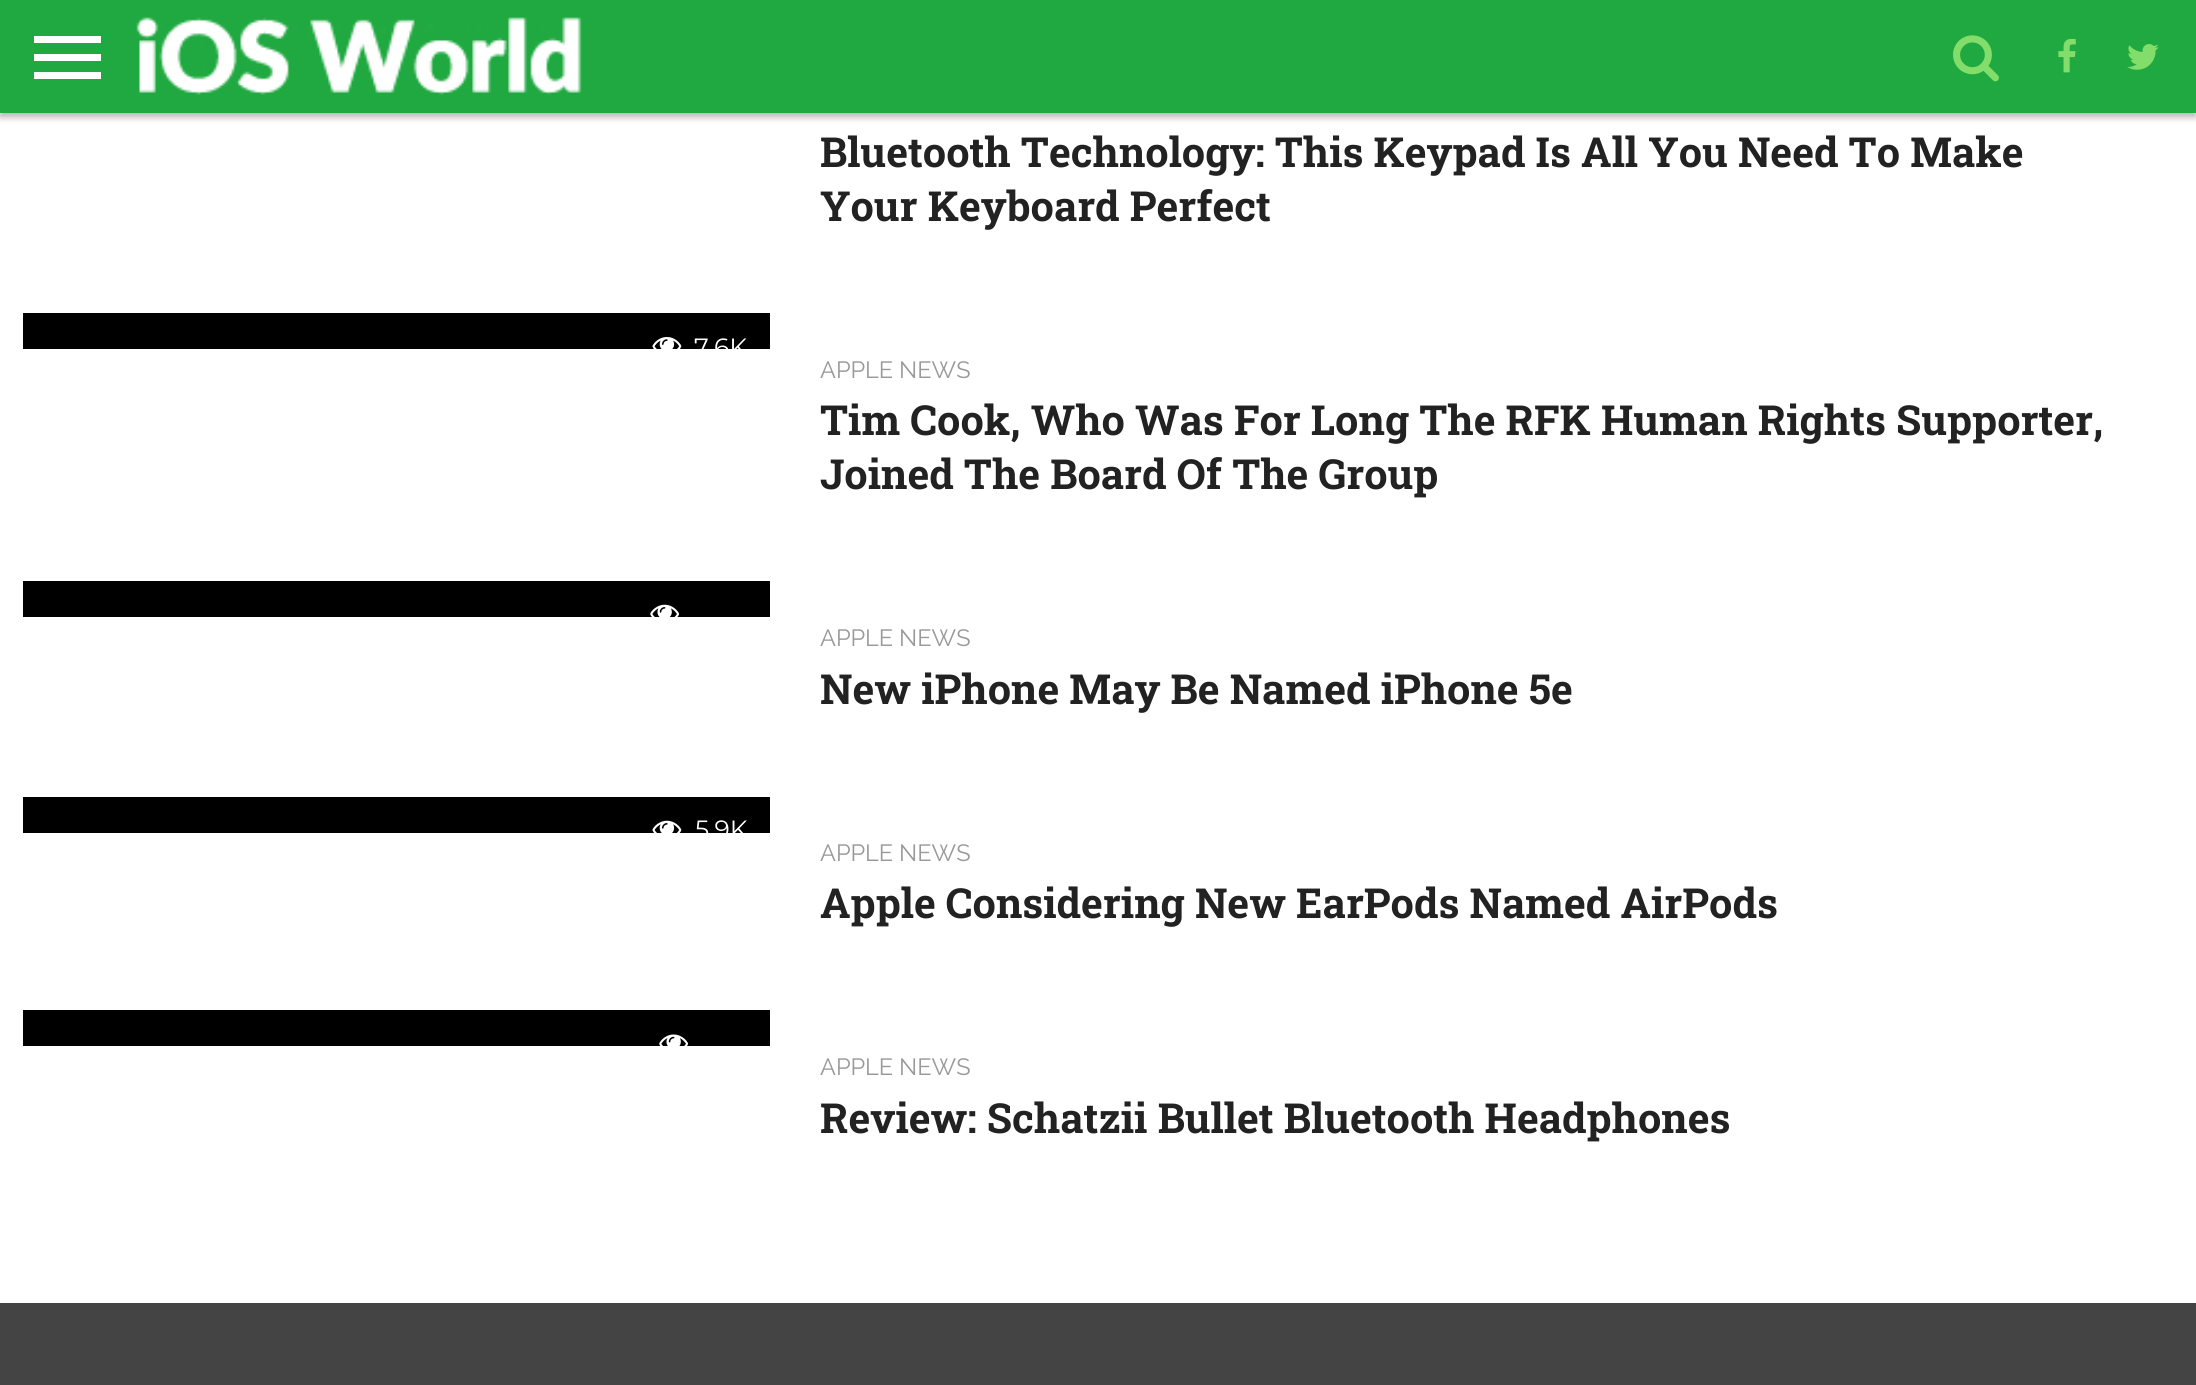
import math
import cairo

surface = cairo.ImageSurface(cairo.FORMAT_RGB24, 2196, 1385)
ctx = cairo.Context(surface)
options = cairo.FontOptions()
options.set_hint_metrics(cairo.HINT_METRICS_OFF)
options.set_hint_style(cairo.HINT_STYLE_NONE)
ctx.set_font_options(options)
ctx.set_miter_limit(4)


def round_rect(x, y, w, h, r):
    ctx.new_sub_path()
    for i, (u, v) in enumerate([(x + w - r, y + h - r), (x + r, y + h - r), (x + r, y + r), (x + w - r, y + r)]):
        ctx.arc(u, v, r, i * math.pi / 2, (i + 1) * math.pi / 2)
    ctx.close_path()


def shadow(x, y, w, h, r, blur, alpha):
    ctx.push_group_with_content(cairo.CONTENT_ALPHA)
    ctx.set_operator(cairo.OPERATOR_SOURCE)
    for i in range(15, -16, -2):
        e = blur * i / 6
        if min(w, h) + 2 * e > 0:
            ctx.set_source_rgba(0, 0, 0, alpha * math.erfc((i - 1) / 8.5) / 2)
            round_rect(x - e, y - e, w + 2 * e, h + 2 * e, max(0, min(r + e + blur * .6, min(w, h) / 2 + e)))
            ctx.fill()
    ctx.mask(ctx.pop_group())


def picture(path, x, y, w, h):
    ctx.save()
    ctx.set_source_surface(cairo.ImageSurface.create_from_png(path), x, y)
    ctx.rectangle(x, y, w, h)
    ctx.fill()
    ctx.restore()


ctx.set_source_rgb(1, 1, 1)
ctx.paint()
ctx.set_source_rgb(0, 0, 0)
shadow(0, 5, 2196, 112, 0, 3.5, 0.3)
ctx.set_source_rgb(0.129, 0.663, 0.255)
ctx.rectangle(0, 0, 2196, 113)
ctx.fill()
picture("img1.png", 1953, 35, 46, 47)
picture("img2.png", 2058, 38, 18, 35)
picture("img3.png", 2127, 44, 32, 26)
ctx.set_source_rgb(1, 1, 1)
ctx.rectangle(34, 36, 67, 7)
ctx.fill()
ctx.rectangle(34, 54, 67, 7)
ctx.fill()
ctx.rectangle(34, 72, 67, 7)
ctx.fill()
picture("img4.png", 136, 17, 446, 78)
ctx.select_font_face("Roboto Slab", cairo.FONT_SLANT_NORMAL, cairo.FONT_WEIGHT_BOLD)
ctx.set_font_size(41.4)
ctx.set_source_rgb(0.133, 0.133, 0.133)
ctx.move_to(820, 167)
ctx.show_text("Bluetooth Technology: This Keypad Is All You Need To Make")
ctx.move_to(820, 221)
ctx.show_text("Your Keyboard Perfect")
ctx.set_source_rgb(0, 0, 0)
ctx.rectangle(23, 313, 747, 36)
ctx.fill()
picture("img5.png", 652, 337, 30, 12)
ctx.save()
ctx.rectangle(23, 313, 747, 36)
ctx.clip()
ctx.select_font_face("Montserrat")
ctx.set_font_size(25)
ctx.set_source_rgb(1, 1, 1)
ctx.move_to(694, 356)
ctx.show_text("7.6K")
ctx.restore()
ctx.select_font_face("Raleway")
ctx.set_font_size(23.5)
ctx.set_source_rgb(0.6, 0.6, 0.6)
ctx.move_to(820, 378)
ctx.show_text("APPLE NEWS")
ctx.select_font_face("Roboto Slab", cairo.FONT_SLANT_NORMAL, cairo.FONT_WEIGHT_BOLD)
ctx.set_font_size(41.4)
ctx.set_source_rgb(0.133, 0.133, 0.133)
ctx.move_to(820, 435)
ctx.show_text("Tim Cook, Who Was For Long The RFK Human Rights Supporter,")
ctx.move_to(820, 489)
ctx.show_text("Joined The Board Of The Group")
ctx.set_source_rgb(0, 0, 0)
ctx.rectangle(23, 581, 747, 36)
ctx.fill()
picture("img6.png", 650, 604, 29, 13)
ctx.select_font_face("Raleway")
ctx.set_font_size(23.5)
ctx.set_source_rgb(0.6, 0.6, 0.6)
ctx.move_to(820, 646)
ctx.show_text("APPLE NEWS")
ctx.select_font_face("Roboto Slab", cairo.FONT_SLANT_NORMAL, cairo.FONT_WEIGHT_BOLD)
ctx.set_font_size(41.4)
ctx.set_source_rgb(0.133, 0.133, 0.133)
ctx.move_to(820, 704)
ctx.show_text("New iPhone May Be Named iPhone 5e")
ctx.set_source_rgb(0, 0, 0)
ctx.rectangle(23, 797, 747, 36)
ctx.fill()
picture("img7.png", 652, 820, 30, 13)
ctx.save()
ctx.rectangle(23, 797, 747, 36)
ctx.clip()
ctx.select_font_face("Montserrat")
ctx.set_font_size(25)
ctx.set_source_rgb(1, 1, 1)
ctx.move_to(695, 838)
ctx.show_text("5.9K")
ctx.restore()
ctx.select_font_face("Raleway")
ctx.set_font_size(23.5)
ctx.set_source_rgb(0.6, 0.6, 0.6)
ctx.move_to(820, 861)
ctx.show_text("APPLE NEWS")
ctx.select_font_face("Roboto Slab", cairo.FONT_SLANT_NORMAL, cairo.FONT_WEIGHT_BOLD)
ctx.set_font_size(41.4)
ctx.set_source_rgb(0.133, 0.133, 0.133)
ctx.move_to(820, 918)
ctx.show_text("Apple Considering New EarPods Named AirPods")
ctx.set_source_rgb(0, 0, 0)
ctx.rectangle(23, 1010, 747, 36)
ctx.fill()
picture("img8.png", 659, 1034, 29, 12)
ctx.select_font_face("Raleway")
ctx.set_font_size(23.5)
ctx.set_source_rgb(0.6, 0.6, 0.6)
ctx.move_to(820, 1075)
ctx.show_text("APPLE NEWS")
ctx.select_font_face("Roboto Slab", cairo.FONT_SLANT_NORMAL, cairo.FONT_WEIGHT_BOLD)
ctx.set_font_size(41.4)
ctx.set_source_rgb(0.133, 0.133, 0.133)
ctx.move_to(820, 1133)
ctx.show_text("Review: Schatzii Bullet Bluetooth Headphones")
ctx.set_source_rgb(0.267, 0.267, 0.267)
ctx.rectangle(0, 1303, 2196, 82)
ctx.fill()
surface.write_to_png("page.png")
